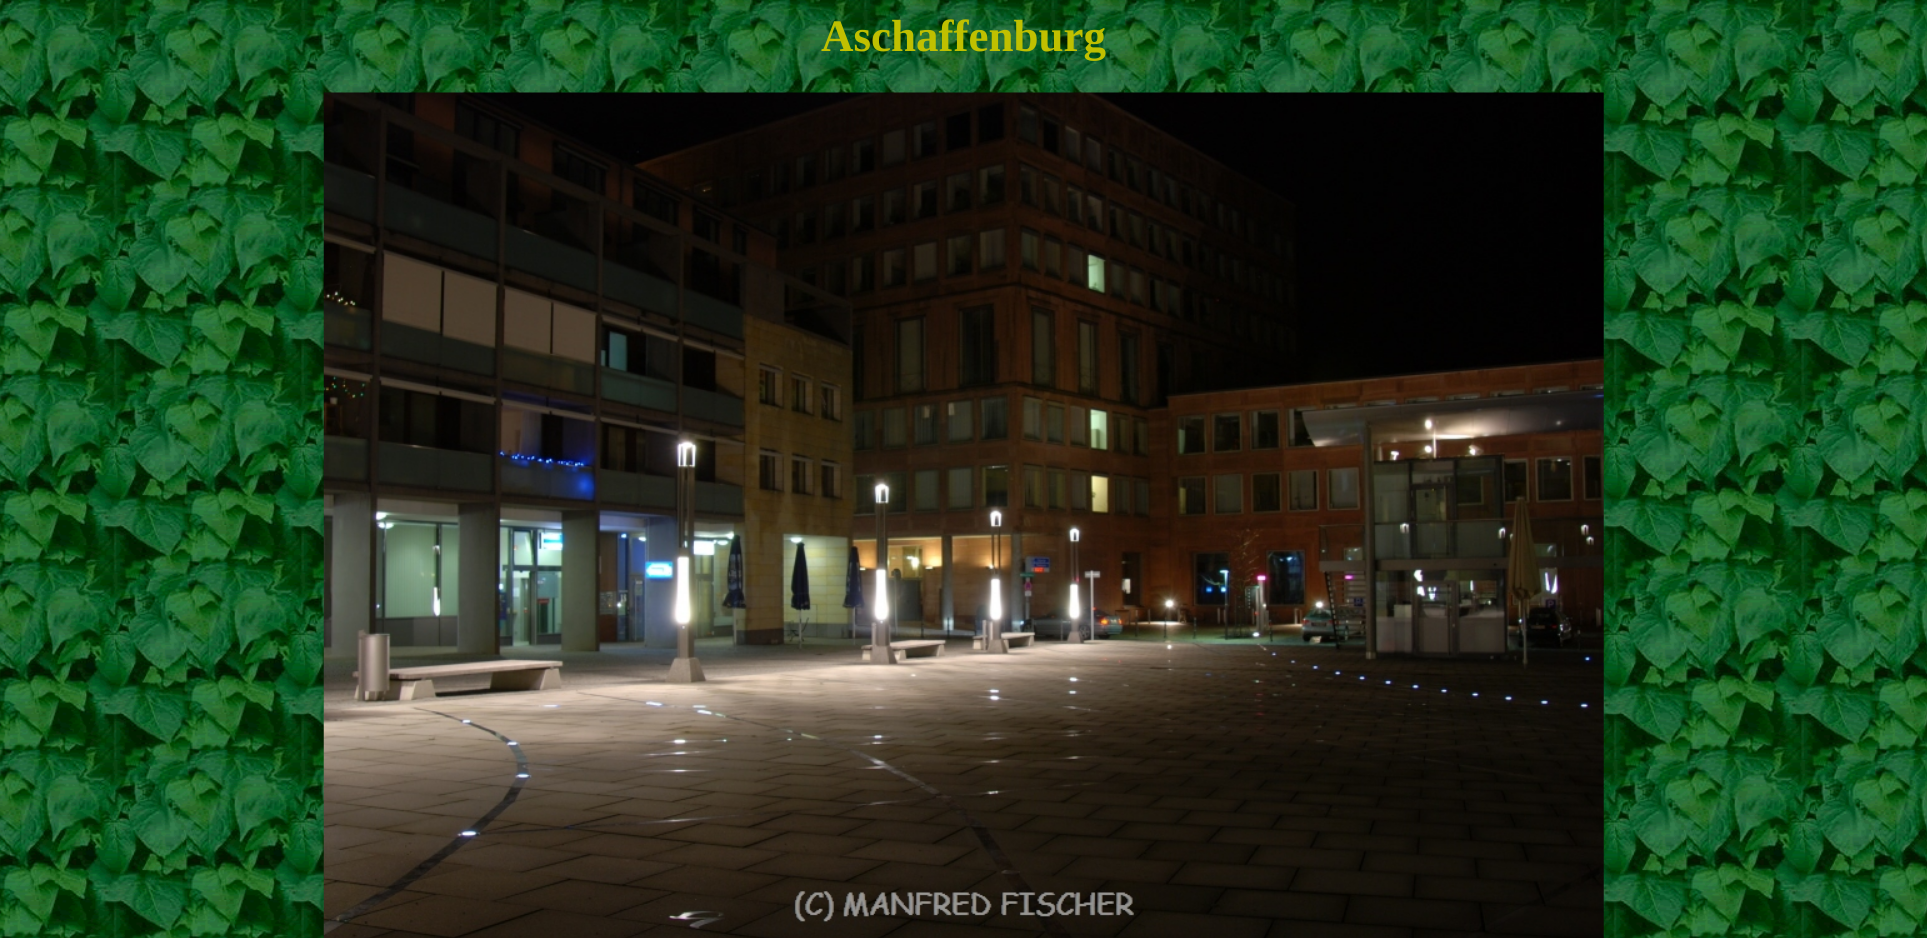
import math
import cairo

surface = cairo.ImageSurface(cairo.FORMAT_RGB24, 1927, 938)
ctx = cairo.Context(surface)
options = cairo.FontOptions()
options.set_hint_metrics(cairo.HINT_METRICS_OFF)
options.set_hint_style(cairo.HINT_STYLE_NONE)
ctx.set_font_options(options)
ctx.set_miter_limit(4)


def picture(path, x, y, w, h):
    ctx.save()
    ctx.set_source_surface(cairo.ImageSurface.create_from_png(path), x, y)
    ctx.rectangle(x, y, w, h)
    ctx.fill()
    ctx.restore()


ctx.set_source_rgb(1, 1, 1)
ctx.paint()
picture("img1.png", 0, 0, 1927, 938)
ctx.select_font_face("Liberation Serif", cairo.FONT_SLANT_NORMAL, cairo.FONT_WEIGHT_BOLD)
ctx.set_font_size(45)
ctx.set_source_rgb(0.753, 0.753, 0)
ctx.move_to(821, 51)
ctx.show_text("Aschaffenburg")
picture("img2.png", 323, 92, 1281, 846)
surface.write_to_png("page.png")
